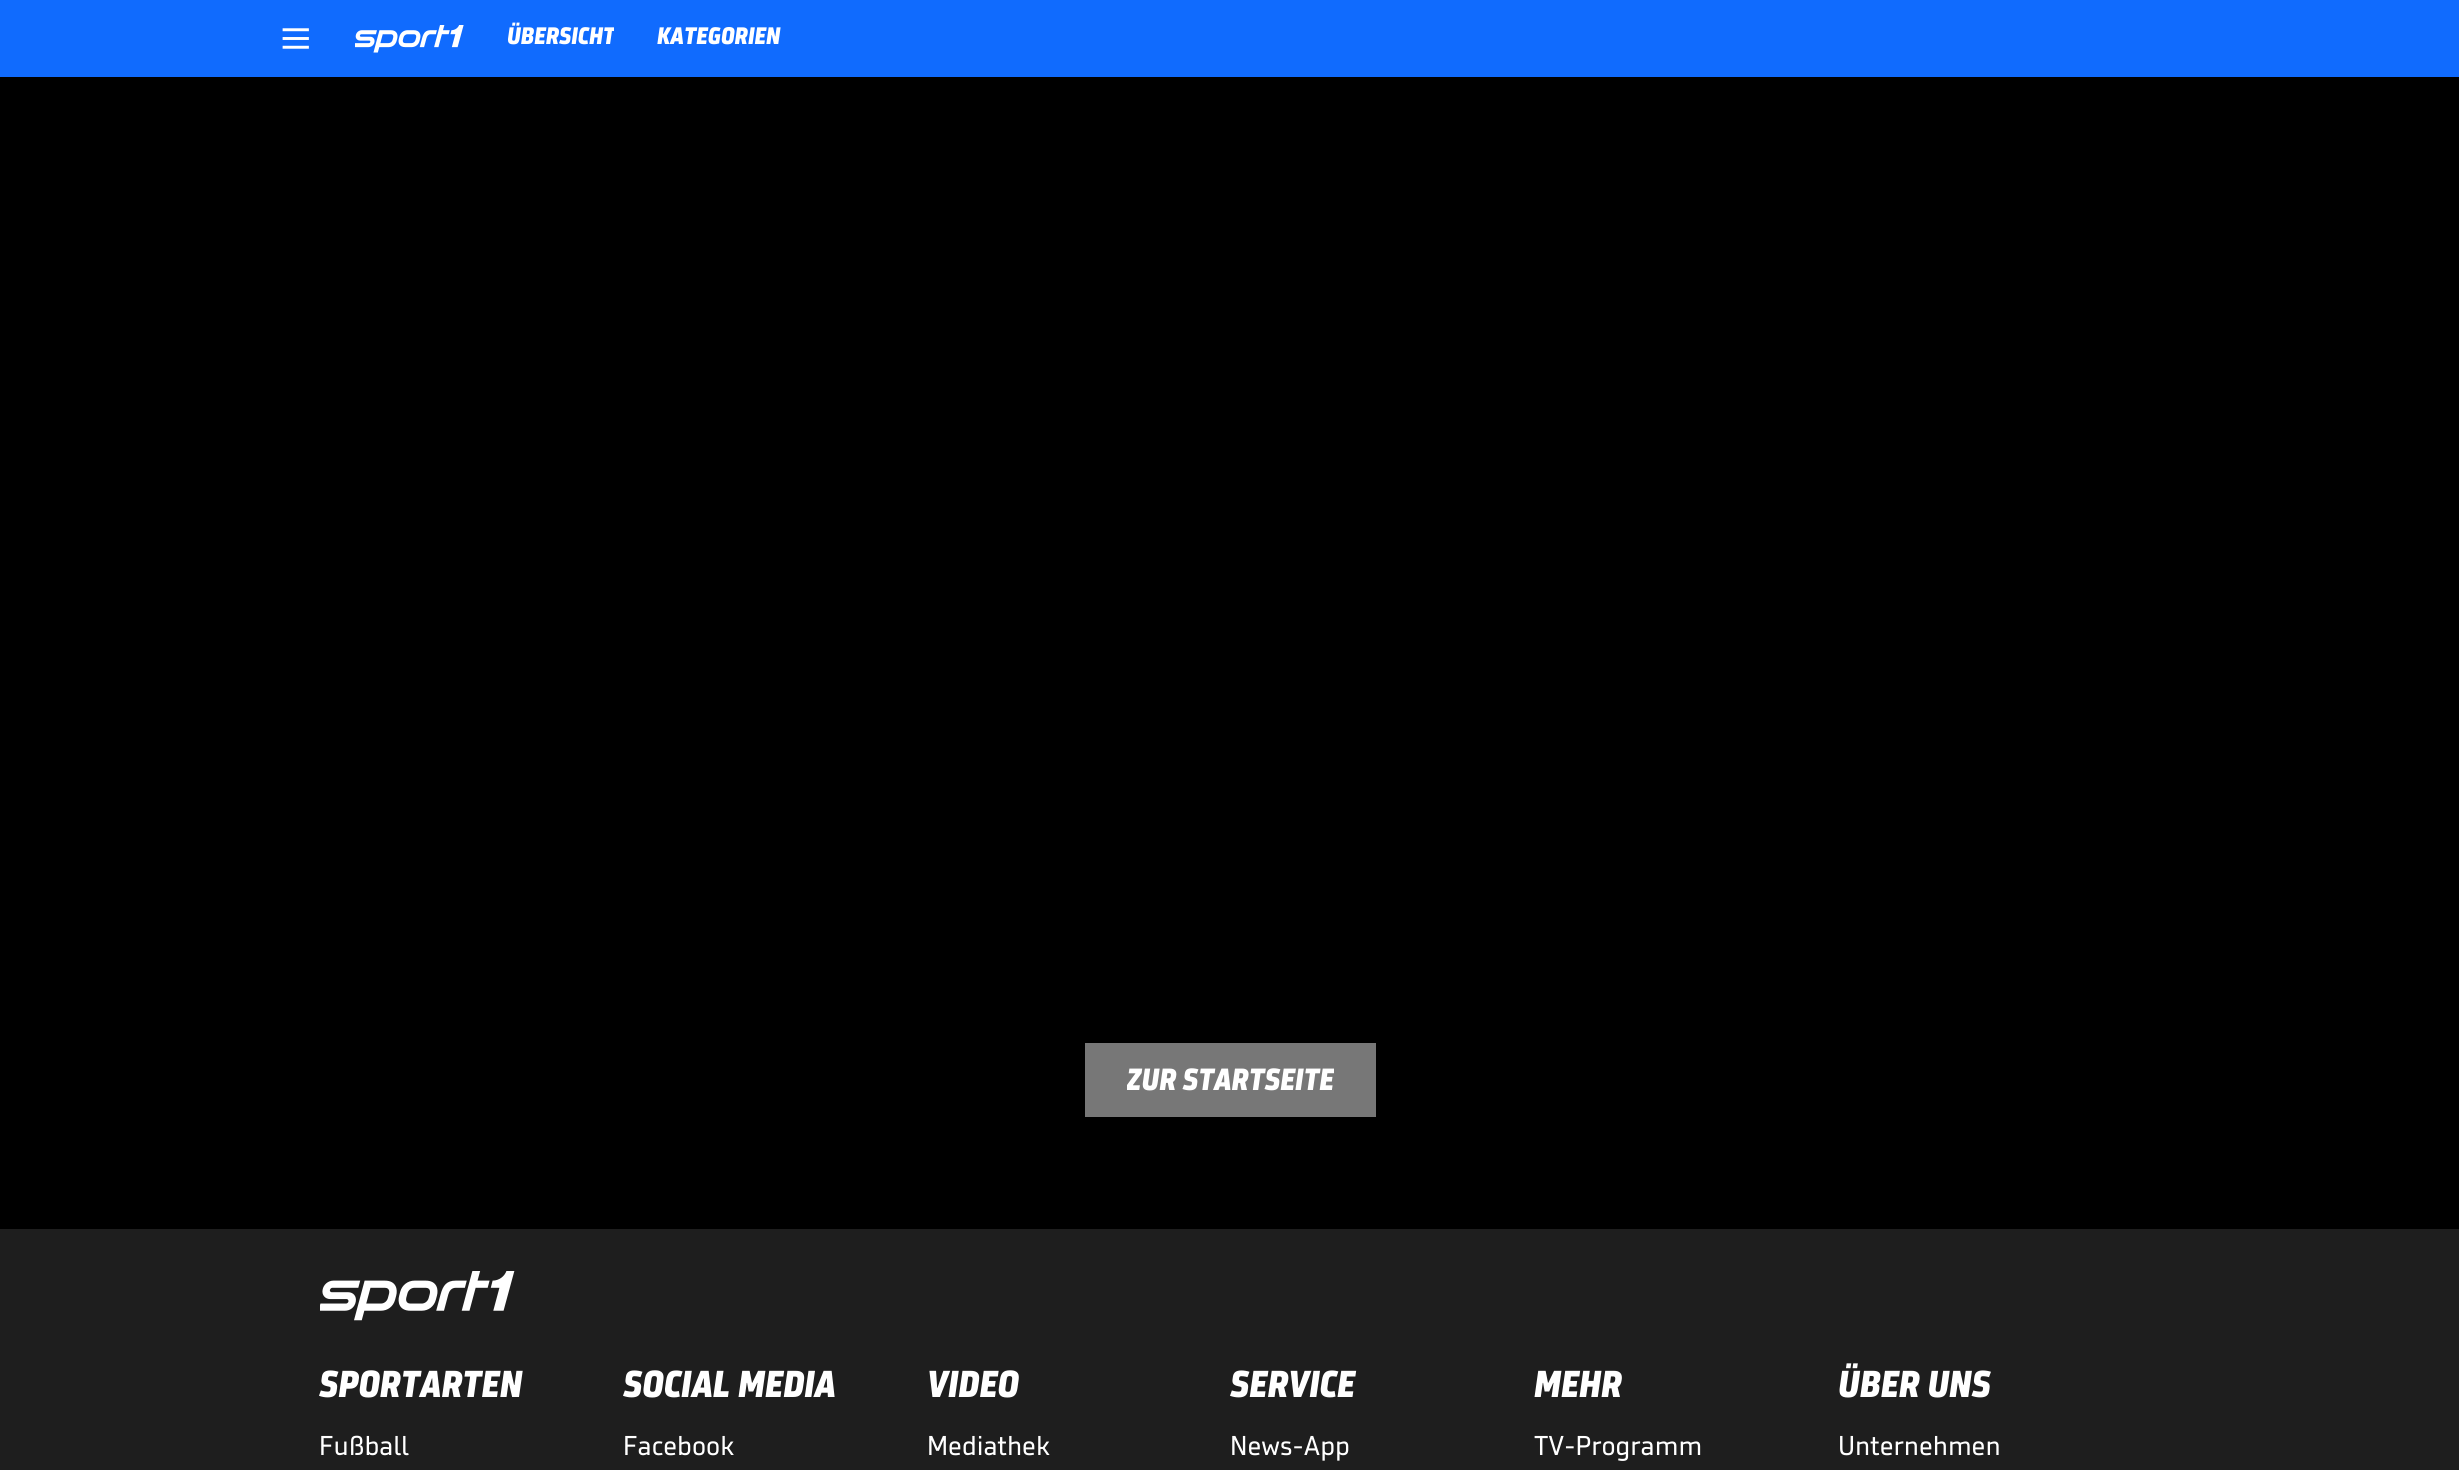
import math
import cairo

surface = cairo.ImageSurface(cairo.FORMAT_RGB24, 2459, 1470)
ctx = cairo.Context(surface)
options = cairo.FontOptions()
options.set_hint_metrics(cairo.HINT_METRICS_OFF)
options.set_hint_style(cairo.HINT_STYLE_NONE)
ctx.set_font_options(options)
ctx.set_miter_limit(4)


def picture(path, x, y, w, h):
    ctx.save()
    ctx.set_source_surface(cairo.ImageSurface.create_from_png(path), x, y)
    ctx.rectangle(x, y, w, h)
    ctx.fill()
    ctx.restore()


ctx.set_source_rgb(0, 0, 0)
ctx.paint()
ctx.set_source_rgb(0.063, 0.42, 0.996)
ctx.rectangle(0, 0, 2459, 77)
ctx.fill()
picture("img1.png", 282, 28, 27, 21)
picture("img2.png", 355, 25, 109, 28)
ctx.save()
ctx.rectangle(508, 21, 106, 32)
ctx.clip()
ctx.select_font_face("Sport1 Black", cairo.FONT_SLANT_ITALIC)
ctx.set_font_size(24.5)
ctx.set_source_rgb(1, 1, 1)
ctx.move_to(507, 44)
ctx.show_text("ÜBERSICHT")
ctx.restore()
ctx.select_font_face("Sport1 Black", cairo.FONT_SLANT_ITALIC)
ctx.set_font_size(24.5)
ctx.set_source_rgb(1, 1, 1)
ctx.move_to(657, 44)
ctx.show_text("KATEGORIEN")
ctx.set_source_rgb(0.467, 0.467, 0.467)
ctx.rectangle(1085, 1043, 291, 74)
ctx.fill()
ctx.save()
ctx.rectangle(1127, 1061, 207, 38)
ctx.clip()
ctx.set_font_size(31.5)
ctx.set_source_rgb(1, 1, 1)
ctx.move_to(1126, 1090)
ctx.show_text("ZUR STARTSEITE")
ctx.restore()
ctx.set_source_rgb(0.118, 0.118, 0.118)
ctx.rectangle(0, 1229, 2459, 241)
ctx.fill()
picture("img3.png", 320, 1271, 195, 50)
ctx.set_font_size(38.5)
ctx.set_source_rgb(1, 1, 1)
ctx.move_to(319, 1397)
ctx.show_text("SPORTARTEN")
ctx.select_font_face("Sport1")
ctx.set_font_size(28)
ctx.move_to(319, 1455)
ctx.show_text("Fußball")
ctx.select_font_face("Sport1 Black", cairo.FONT_SLANT_ITALIC)
ctx.set_font_size(38.5)
ctx.move_to(623, 1397)
ctx.show_text("SOCIAL MEDIA")
ctx.select_font_face("Sport1")
ctx.set_font_size(28)
ctx.move_to(623, 1455)
ctx.show_text("Facebook")
ctx.select_font_face("Sport1 Black", cairo.FONT_SLANT_ITALIC)
ctx.set_font_size(38.5)
ctx.move_to(927, 1397)
ctx.show_text("VIDEO")
ctx.select_font_face("Sport1")
ctx.set_font_size(28)
ctx.move_to(927, 1455)
ctx.show_text("Mediathek")
ctx.select_font_face("Sport1 Black", cairo.FONT_SLANT_ITALIC)
ctx.set_font_size(38.5)
ctx.move_to(1230, 1397)
ctx.show_text("SERVICE")
ctx.select_font_face("Sport1")
ctx.set_font_size(28)
ctx.move_to(1230, 1455)
ctx.show_text("News-App")
ctx.select_font_face("Sport1 Black", cairo.FONT_SLANT_ITALIC)
ctx.set_font_size(38.5)
ctx.move_to(1534, 1397)
ctx.show_text("MEHR")
ctx.select_font_face("Sport1")
ctx.set_font_size(28)
ctx.move_to(1534, 1455)
ctx.show_text("TV-Programm")
ctx.select_font_face("Sport1 Black", cairo.FONT_SLANT_ITALIC)
ctx.set_font_size(38.5)
ctx.move_to(1838, 1397)
ctx.show_text("ÜBER UNS")
ctx.select_font_face("Sport1")
ctx.set_font_size(28)
ctx.move_to(1838, 1455)
ctx.show_text("Unternehmen")
surface.write_to_png("page.png")
